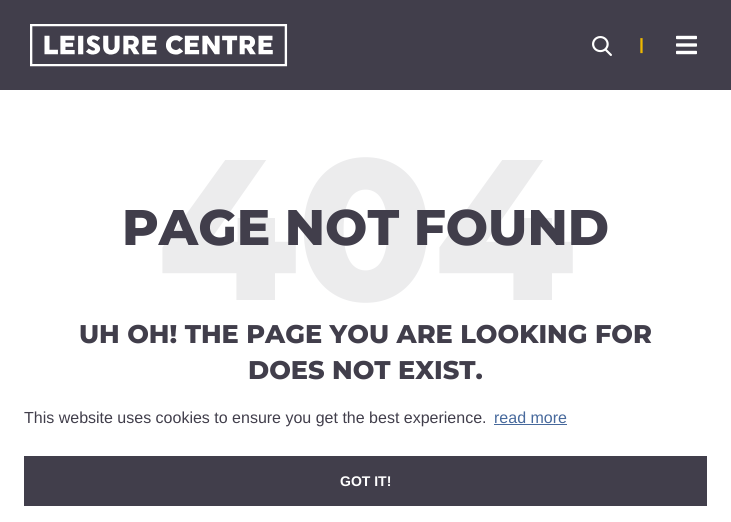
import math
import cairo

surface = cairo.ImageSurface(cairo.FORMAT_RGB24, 731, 522)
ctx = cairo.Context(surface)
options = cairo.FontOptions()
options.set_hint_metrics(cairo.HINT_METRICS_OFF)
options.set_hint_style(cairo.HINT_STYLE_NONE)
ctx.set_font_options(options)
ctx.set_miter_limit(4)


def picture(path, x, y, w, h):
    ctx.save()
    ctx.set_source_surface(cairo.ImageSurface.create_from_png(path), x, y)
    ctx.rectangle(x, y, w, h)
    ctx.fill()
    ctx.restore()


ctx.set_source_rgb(1, 1, 1)
ctx.paint()
ctx.set_source_rgb(0.255, 0.243, 0.294)
ctx.rectangle(0, 0, 731, 90)
ctx.fill()
picture("img1.png", 30, 24, 258, 43)
picture("img2.png", 592, 36, 20, 20)
ctx.select_font_face("Montserrat", cairo.FONT_SLANT_NORMAL, cairo.FONT_WEIGHT_BOLD)
ctx.set_font_size(16)
ctx.set_source_rgb(0.933, 0.722, 0)
ctx.move_to(639, 50)
ctx.show_text("|")
picture("img3.png", 676, 35, 21, 20)
ctx.select_font_face("Montserrat ExtraBold")
ctx.set_font_size(200)
ctx.set_source_rgb(0.925, 0.925, 0.929)
ctx.move_to(157, 300)
ctx.show_text("404")
ctx.set_font_size(50)
ctx.set_source_rgb(0.255, 0.243, 0.294)
ctx.move_to(122, 245)
ctx.show_text("PAGE NOT FOUND")
ctx.set_font_size(25.6)
ctx.move_to(79, 343)
ctx.show_text("UH OH! THE PAGE YOU ARE LOOKING FOR")
ctx.move_to(248, 379)
ctx.show_text("DOES NOT EXIST.")
ctx.select_font_face("Liberation Sans")
ctx.set_font_size(16)
ctx.move_to(24, 423)
ctx.show_text("This website uses cookies to ensure you get the best experience.")
ctx.set_source_rgb(0.278, 0.412, 0.612)
ctx.move_to(494, 423)
ctx.show_text("read more")
ctx.rectangle(494, 424, 73, 1)
ctx.fill()
ctx.set_source_rgb(0.255, 0.243, 0.294)
ctx.rectangle(24, 456, 683, 50)
ctx.fill()
ctx.select_font_face("Liberation Sans", cairo.FONT_SLANT_NORMAL, cairo.FONT_WEIGHT_BOLD)
ctx.set_font_size(14)
ctx.set_source_rgb(1, 1, 1)
ctx.move_to(340, 486)
ctx.show_text("GOT IT!")
surface.write_to_png("page.png")
